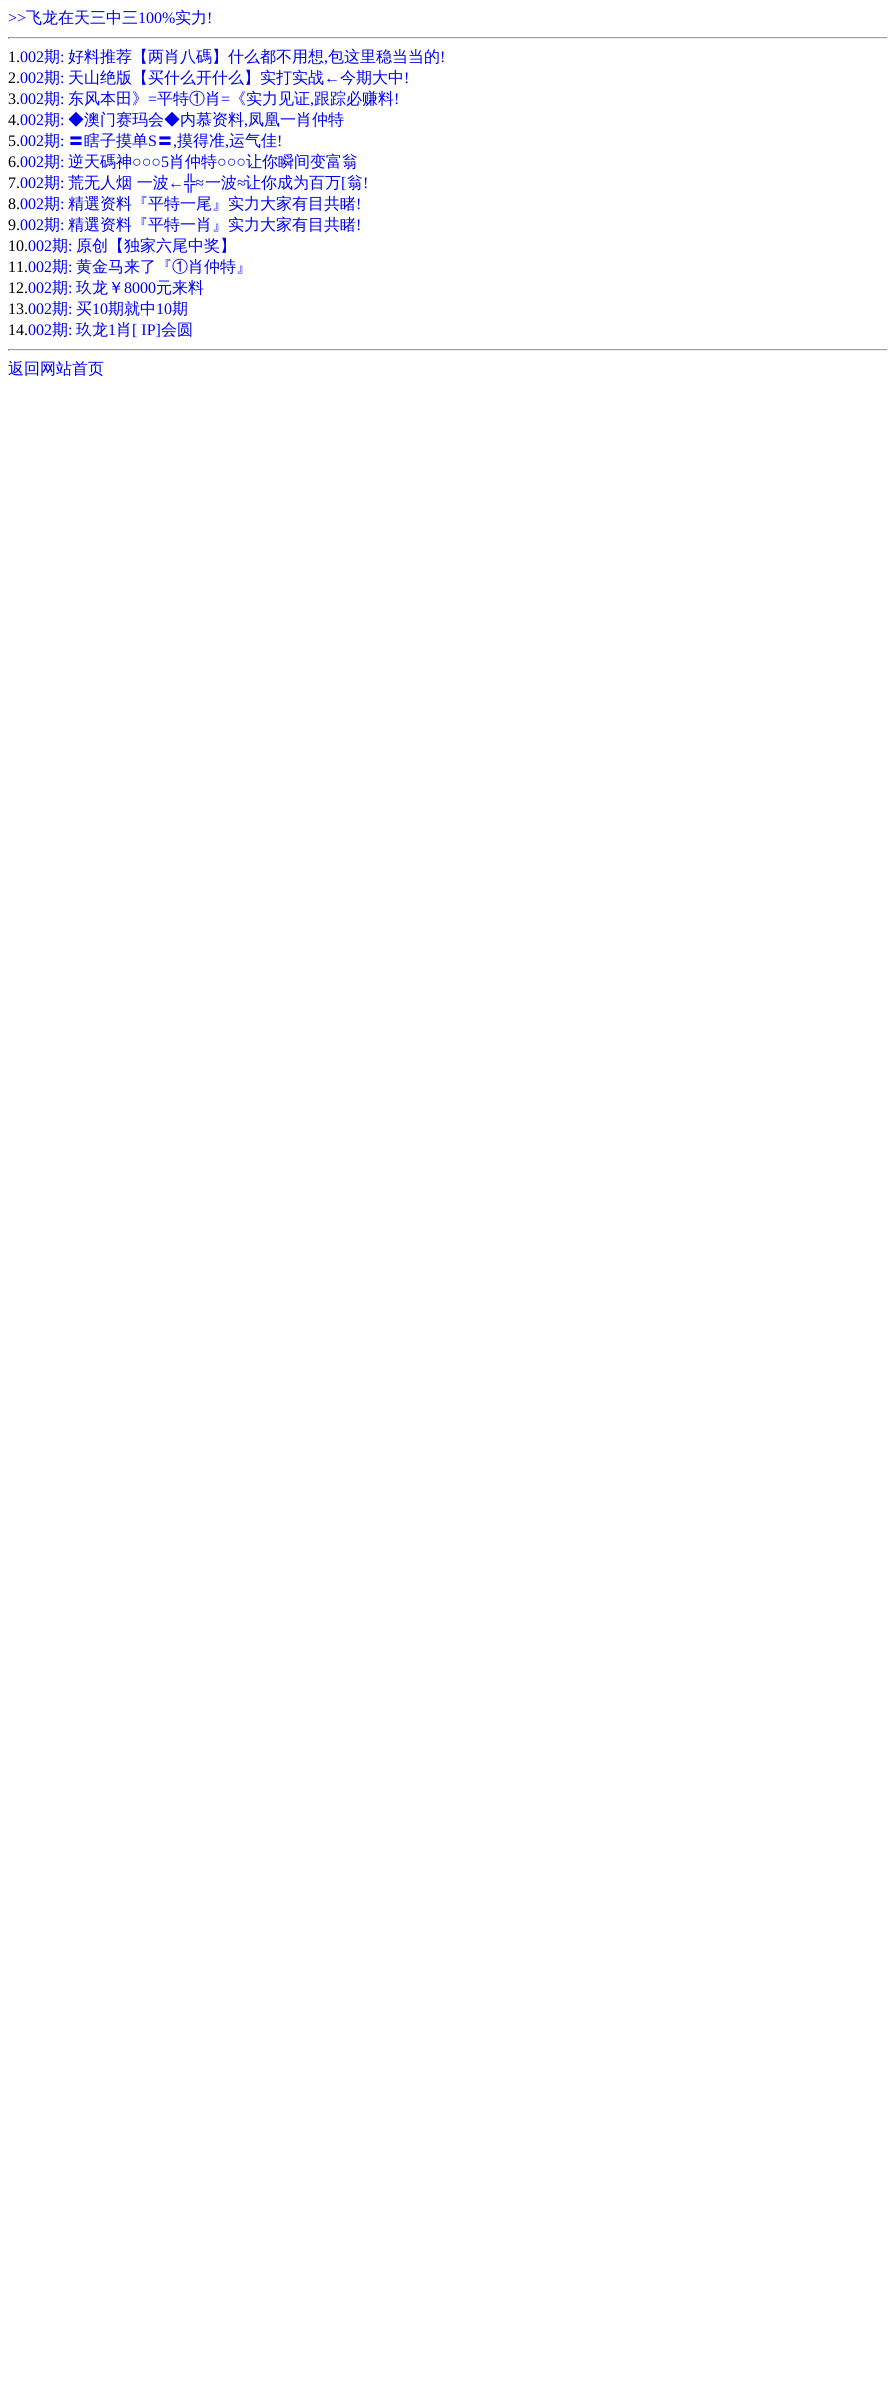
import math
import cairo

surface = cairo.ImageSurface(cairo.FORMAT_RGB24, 896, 2384)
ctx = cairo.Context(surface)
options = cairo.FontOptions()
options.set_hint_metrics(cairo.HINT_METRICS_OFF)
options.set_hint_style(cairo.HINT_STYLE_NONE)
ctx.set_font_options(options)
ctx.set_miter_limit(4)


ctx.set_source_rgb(1, 1, 1)
ctx.paint()
ctx.select_font_face("Liberation Serif")
ctx.set_font_size(16)
ctx.set_source_rgb(0, 0, 0.933)
ctx.move_to(8, 23)
ctx.show_text(">>")
ctx.select_font_face("WenQuanYi Zen Hei Medium")
ctx.move_to(26, 23)
ctx.show_text("飞龙在天三中三")
ctx.select_font_face("Liberation Serif")
ctx.move_to(138, 23)
ctx.show_text("100%")
ctx.select_font_face("WenQuanYi Zen Hei Medium")
ctx.move_to(175, 23)
ctx.show_text("实力")
ctx.select_font_face("Liberation Serif")
ctx.move_to(207, 23)
ctx.show_text("!")
ctx.set_source_rgb(0.624, 0.624, 0.624)
ctx.rectangle(8, 37, 880, 1)
ctx.fill()
ctx.set_source_rgb(0.933, 0.933, 0.933)
ctx.rectangle(887, 37, 1, 2)
ctx.fill()
ctx.rectangle(8, 38, 880, 1)
ctx.fill()
ctx.set_source_rgb(0.624, 0.624, 0.624)
ctx.rectangle(8, 37, 1, 2)
ctx.fill()
ctx.set_source_rgb(0, 0, 0)
ctx.move_to(8, 62)
ctx.show_text("1.")
ctx.set_source_rgb(0, 0, 0.933)
ctx.move_to(20, 62)
ctx.show_text("002")
ctx.select_font_face("WenQuanYi Zen Hei Medium")
ctx.move_to(44, 62)
ctx.show_text("期")
ctx.select_font_face("Liberation Serif")
ctx.move_to(60, 62)
ctx.show_text(":")
ctx.select_font_face("WenQuanYi Zen Hei Medium")
ctx.move_to(68, 62)
ctx.show_text("好料推荐【两肖八碼】什么都不用想")
ctx.select_font_face("Liberation Serif")
ctx.move_to(324, 62)
ctx.show_text(",")
ctx.select_font_face("WenQuanYi Zen Hei Medium")
ctx.move_to(328, 62)
ctx.show_text("包这里稳当当的")
ctx.select_font_face("Liberation Serif")
ctx.move_to(440, 62)
ctx.show_text("!")
ctx.set_source_rgb(0, 0, 0)
ctx.move_to(8, 83)
ctx.show_text("2.")
ctx.set_source_rgb(0, 0, 0.933)
ctx.move_to(20, 83)
ctx.show_text("002")
ctx.select_font_face("WenQuanYi Zen Hei Medium")
ctx.move_to(44, 83)
ctx.show_text("期")
ctx.select_font_face("Liberation Serif")
ctx.move_to(60, 83)
ctx.show_text(":")
ctx.select_font_face("WenQuanYi Zen Hei Medium")
ctx.move_to(68, 83)
ctx.show_text("天山绝版【买什么开什么】实打实战")
ctx.select_font_face("Liberation Serif")
ctx.move_to(324, 83)
ctx.show_text("←")
ctx.select_font_face("WenQuanYi Zen Hei Medium")
ctx.move_to(340, 83)
ctx.show_text("今期大中")
ctx.select_font_face("Liberation Serif")
ctx.move_to(404, 83)
ctx.show_text("!")
ctx.set_source_rgb(0, 0, 0)
ctx.move_to(8, 104)
ctx.show_text("3.")
ctx.set_source_rgb(0, 0, 0.933)
ctx.move_to(20, 104)
ctx.show_text("002")
ctx.select_font_face("WenQuanYi Zen Hei Medium")
ctx.move_to(44, 104)
ctx.show_text("期")
ctx.select_font_face("Liberation Serif")
ctx.move_to(60, 104)
ctx.show_text(":")
ctx.select_font_face("WenQuanYi Zen Hei Medium")
ctx.move_to(68, 104)
ctx.show_text("东风本田》")
ctx.select_font_face("Liberation Serif")
ctx.move_to(148, 104)
ctx.show_text("=")
ctx.select_font_face("WenQuanYi Zen Hei Medium")
ctx.move_to(157, 104)
ctx.show_text("平特①肖")
ctx.select_font_face("Liberation Serif")
ctx.move_to(221, 104)
ctx.show_text("=")
ctx.select_font_face("WenQuanYi Zen Hei Medium")
ctx.move_to(230, 104)
ctx.show_text("《实力见证")
ctx.move_to(314, 104)
ctx.show_text("跟踪必赚料")
ctx.select_font_face("Liberation Serif")
ctx.move_to(394, 104)
ctx.show_text("!")
ctx.move_to(310, 104)
ctx.show_text(",")
ctx.set_source_rgb(0, 0, 0)
ctx.move_to(8, 125)
ctx.show_text("4.")
ctx.set_source_rgb(0, 0, 0.933)
ctx.move_to(20, 125)
ctx.show_text("002")
ctx.select_font_face("WenQuanYi Zen Hei Medium")
ctx.move_to(44, 125)
ctx.show_text("期")
ctx.select_font_face("Liberation Serif")
ctx.move_to(60, 125)
ctx.show_text(":")
ctx.select_font_face("WenQuanYi Zen Hei Medium")
ctx.move_to(68, 125)
ctx.show_text("◆澳门赛玛会◆内慕资料")
ctx.select_font_face("Liberation Serif")
ctx.move_to(244, 125)
ctx.show_text(",")
ctx.select_font_face("WenQuanYi Zen Hei Medium")
ctx.move_to(248, 125)
ctx.show_text("凤凰一肖仲特")
ctx.select_font_face("Liberation Serif")
ctx.set_source_rgb(0, 0, 0)
ctx.move_to(8, 146)
ctx.show_text("5.")
ctx.set_source_rgb(0, 0, 0.933)
ctx.move_to(20, 146)
ctx.show_text("002")
ctx.select_font_face("WenQuanYi Zen Hei Medium")
ctx.move_to(44, 146)
ctx.show_text("期")
ctx.select_font_face("Liberation Serif")
ctx.move_to(60, 146)
ctx.show_text(":")
ctx.select_font_face("WenQuanYi Zen Hei Medium")
ctx.move_to(68, 146)
ctx.show_text("〓瞎子摸单")
ctx.select_font_face("Liberation Serif")
ctx.move_to(148, 146)
ctx.show_text("S")
ctx.select_font_face("WenQuanYi Zen Hei Medium")
ctx.move_to(157, 146)
ctx.show_text("〓")
ctx.select_font_face("Liberation Serif")
ctx.move_to(173, 146)
ctx.show_text(",")
ctx.select_font_face("WenQuanYi Zen Hei Medium")
ctx.move_to(177, 146)
ctx.show_text("摸得准")
ctx.select_font_face("Liberation Serif")
ctx.move_to(225, 146)
ctx.show_text(",")
ctx.select_font_face("WenQuanYi Zen Hei Medium")
ctx.move_to(229, 146)
ctx.show_text("运气佳")
ctx.select_font_face("Liberation Serif")
ctx.move_to(277, 146)
ctx.show_text("!")
ctx.set_source_rgb(0, 0, 0)
ctx.move_to(8, 167)
ctx.show_text("6.")
ctx.set_source_rgb(0, 0, 0.933)
ctx.move_to(20, 167)
ctx.show_text("002")
ctx.select_font_face("WenQuanYi Zen Hei Medium")
ctx.move_to(44, 167)
ctx.show_text("期")
ctx.select_font_face("Liberation Serif")
ctx.move_to(60, 167)
ctx.show_text(":")
ctx.select_font_face("WenQuanYi Zen Hei Medium")
ctx.move_to(68, 167)
ctx.show_text("逆天碼神")
ctx.select_font_face("Liberation Serif")
ctx.move_to(132, 167)
ctx.show_text("○○○5")
ctx.select_font_face("WenQuanYi Zen Hei Medium")
ctx.move_to(169, 167)
ctx.show_text("肖仲特")
ctx.select_font_face("Liberation Serif")
ctx.move_to(217, 167)
ctx.show_text("○○○")
ctx.select_font_face("WenQuanYi Zen Hei Medium")
ctx.move_to(246, 167)
ctx.show_text("让你瞬间变富翁")
ctx.select_font_face("Liberation Serif")
ctx.set_source_rgb(0, 0, 0)
ctx.move_to(8, 188)
ctx.show_text("7.")
ctx.set_source_rgb(0, 0, 0.933)
ctx.move_to(20, 188)
ctx.show_text("002")
ctx.select_font_face("WenQuanYi Zen Hei Medium")
ctx.move_to(44, 188)
ctx.show_text("期")
ctx.select_font_face("Liberation Serif")
ctx.move_to(60, 188)
ctx.show_text(":")
ctx.select_font_face("WenQuanYi Zen Hei Medium")
ctx.move_to(68, 188)
ctx.show_text("荒无人烟 一波")
ctx.select_font_face("Liberation Serif")
ctx.move_to(168, 188)
ctx.show_text("←╬≈")
ctx.select_font_face("WenQuanYi Zen Hei Medium")
ctx.move_to(205, 188)
ctx.show_text("一波")
ctx.select_font_face("Liberation Serif")
ctx.move_to(237, 188)
ctx.show_text("≈")
ctx.select_font_face("WenQuanYi Zen Hei Medium")
ctx.move_to(245, 188)
ctx.show_text("让你成为百万")
ctx.select_font_face("Liberation Serif")
ctx.move_to(341, 188)
ctx.show_text("[")
ctx.select_font_face("WenQuanYi Zen Hei Medium")
ctx.move_to(347, 188)
ctx.show_text("翁")
ctx.select_font_face("Liberation Serif")
ctx.move_to(363, 188)
ctx.show_text("!")
ctx.set_source_rgb(0, 0, 0)
ctx.move_to(8, 209)
ctx.show_text("8.")
ctx.set_source_rgb(0, 0, 0.933)
ctx.move_to(20, 209)
ctx.show_text("002")
ctx.select_font_face("WenQuanYi Zen Hei Medium")
ctx.move_to(44, 209)
ctx.show_text("期")
ctx.select_font_face("Liberation Serif")
ctx.move_to(60, 209)
ctx.show_text(":")
ctx.select_font_face("WenQuanYi Zen Hei Medium")
ctx.move_to(68, 209)
ctx.show_text("精選资料『平特一尾』实力大家有目共睹")
ctx.select_font_face("Liberation Serif")
ctx.move_to(356, 209)
ctx.show_text("!")
ctx.set_source_rgb(0, 0, 0)
ctx.move_to(8, 230)
ctx.show_text("9.")
ctx.set_source_rgb(0, 0, 0.933)
ctx.move_to(20, 230)
ctx.show_text("002")
ctx.select_font_face("WenQuanYi Zen Hei Medium")
ctx.move_to(44, 230)
ctx.show_text("期")
ctx.select_font_face("Liberation Serif")
ctx.move_to(60, 230)
ctx.show_text(":")
ctx.select_font_face("WenQuanYi Zen Hei Medium")
ctx.move_to(68, 230)
ctx.show_text("精選资料『平特一肖』实力大家有目共睹")
ctx.select_font_face("Liberation Serif")
ctx.move_to(356, 230)
ctx.show_text("!")
ctx.set_source_rgb(0, 0, 0)
ctx.move_to(8, 251)
ctx.show_text("10.")
ctx.set_source_rgb(0, 0, 0.933)
ctx.move_to(28, 251)
ctx.show_text("002")
ctx.select_font_face("WenQuanYi Zen Hei Medium")
ctx.move_to(52, 251)
ctx.show_text("期")
ctx.select_font_face("Liberation Serif")
ctx.move_to(68, 251)
ctx.show_text(":")
ctx.select_font_face("WenQuanYi Zen Hei Medium")
ctx.move_to(76, 251)
ctx.show_text("原创【独家六尾中奖】")
ctx.select_font_face("Liberation Serif")
ctx.set_source_rgb(0, 0, 0)
ctx.move_to(8, 272)
ctx.show_text("11.")
ctx.set_source_rgb(0, 0, 0.933)
ctx.move_to(28, 272)
ctx.show_text("002")
ctx.select_font_face("WenQuanYi Zen Hei Medium")
ctx.move_to(52, 272)
ctx.show_text("期")
ctx.select_font_face("Liberation Serif")
ctx.move_to(68, 272)
ctx.show_text(":")
ctx.select_font_face("WenQuanYi Zen Hei Medium")
ctx.move_to(76, 272)
ctx.show_text("黄金马来了『①肖仲特』")
ctx.select_font_face("Liberation Serif")
ctx.set_source_rgb(0, 0, 0)
ctx.move_to(8, 293)
ctx.show_text("12.")
ctx.set_source_rgb(0, 0, 0.933)
ctx.move_to(28, 293)
ctx.show_text("002")
ctx.select_font_face("WenQuanYi Zen Hei Medium")
ctx.move_to(52, 293)
ctx.show_text("期")
ctx.select_font_face("Liberation Serif")
ctx.move_to(68, 293)
ctx.show_text(":")
ctx.select_font_face("WenQuanYi Zen Hei Medium")
ctx.move_to(76, 293)
ctx.show_text("玖龙￥")
ctx.select_font_face("Liberation Serif")
ctx.move_to(124, 293)
ctx.show_text("8000")
ctx.select_font_face("WenQuanYi Zen Hei Medium")
ctx.move_to(156, 293)
ctx.show_text("元来料")
ctx.select_font_face("Liberation Serif")
ctx.set_source_rgb(0, 0, 0)
ctx.move_to(8, 314)
ctx.show_text("13.")
ctx.set_source_rgb(0, 0, 0.933)
ctx.move_to(28, 314)
ctx.show_text("002")
ctx.select_font_face("WenQuanYi Zen Hei Medium")
ctx.move_to(52, 314)
ctx.show_text("期")
ctx.select_font_face("Liberation Serif")
ctx.move_to(68, 314)
ctx.show_text(":")
ctx.select_font_face("WenQuanYi Zen Hei Medium")
ctx.move_to(76, 314)
ctx.show_text("买")
ctx.select_font_face("Liberation Serif")
ctx.move_to(92, 314)
ctx.show_text("10")
ctx.select_font_face("WenQuanYi Zen Hei Medium")
ctx.move_to(108, 314)
ctx.show_text("期就中")
ctx.select_font_face("Liberation Serif")
ctx.move_to(156, 314)
ctx.show_text("10")
ctx.select_font_face("WenQuanYi Zen Hei Medium")
ctx.move_to(172, 314)
ctx.show_text("期")
ctx.select_font_face("Liberation Serif")
ctx.set_source_rgb(0, 0, 0)
ctx.move_to(8, 335)
ctx.show_text("14.")
ctx.set_source_rgb(0, 0, 0.933)
ctx.move_to(28, 335)
ctx.show_text("002")
ctx.select_font_face("WenQuanYi Zen Hei Medium")
ctx.move_to(52, 335)
ctx.show_text("期")
ctx.select_font_face("Liberation Serif")
ctx.move_to(68, 335)
ctx.show_text(":")
ctx.select_font_face("WenQuanYi Zen Hei Medium")
ctx.move_to(76, 335)
ctx.show_text("玖龙")
ctx.select_font_face("Liberation Serif")
ctx.move_to(108, 335)
ctx.show_text("1")
ctx.select_font_face("WenQuanYi Zen Hei Medium")
ctx.move_to(116, 335)
ctx.show_text("肖")
ctx.select_font_face("Liberation Serif")
ctx.move_to(132, 335)
ctx.show_text("[ IP]")
ctx.select_font_face("WenQuanYi Zen Hei Medium")
ctx.move_to(161, 335)
ctx.show_text("会圆")
ctx.set_source_rgb(0.624, 0.624, 0.624)
ctx.rectangle(8, 349, 880, 1)
ctx.fill()
ctx.set_source_rgb(0.933, 0.933, 0.933)
ctx.rectangle(887, 349, 1, 2)
ctx.fill()
ctx.rectangle(8, 350, 880, 1)
ctx.fill()
ctx.set_source_rgb(0.624, 0.624, 0.624)
ctx.rectangle(8, 349, 1, 2)
ctx.fill()
ctx.set_source_rgb(0, 0, 0.933)
ctx.move_to(8, 374)
ctx.show_text("返回网站首页")
surface.write_to_png("page.png")
